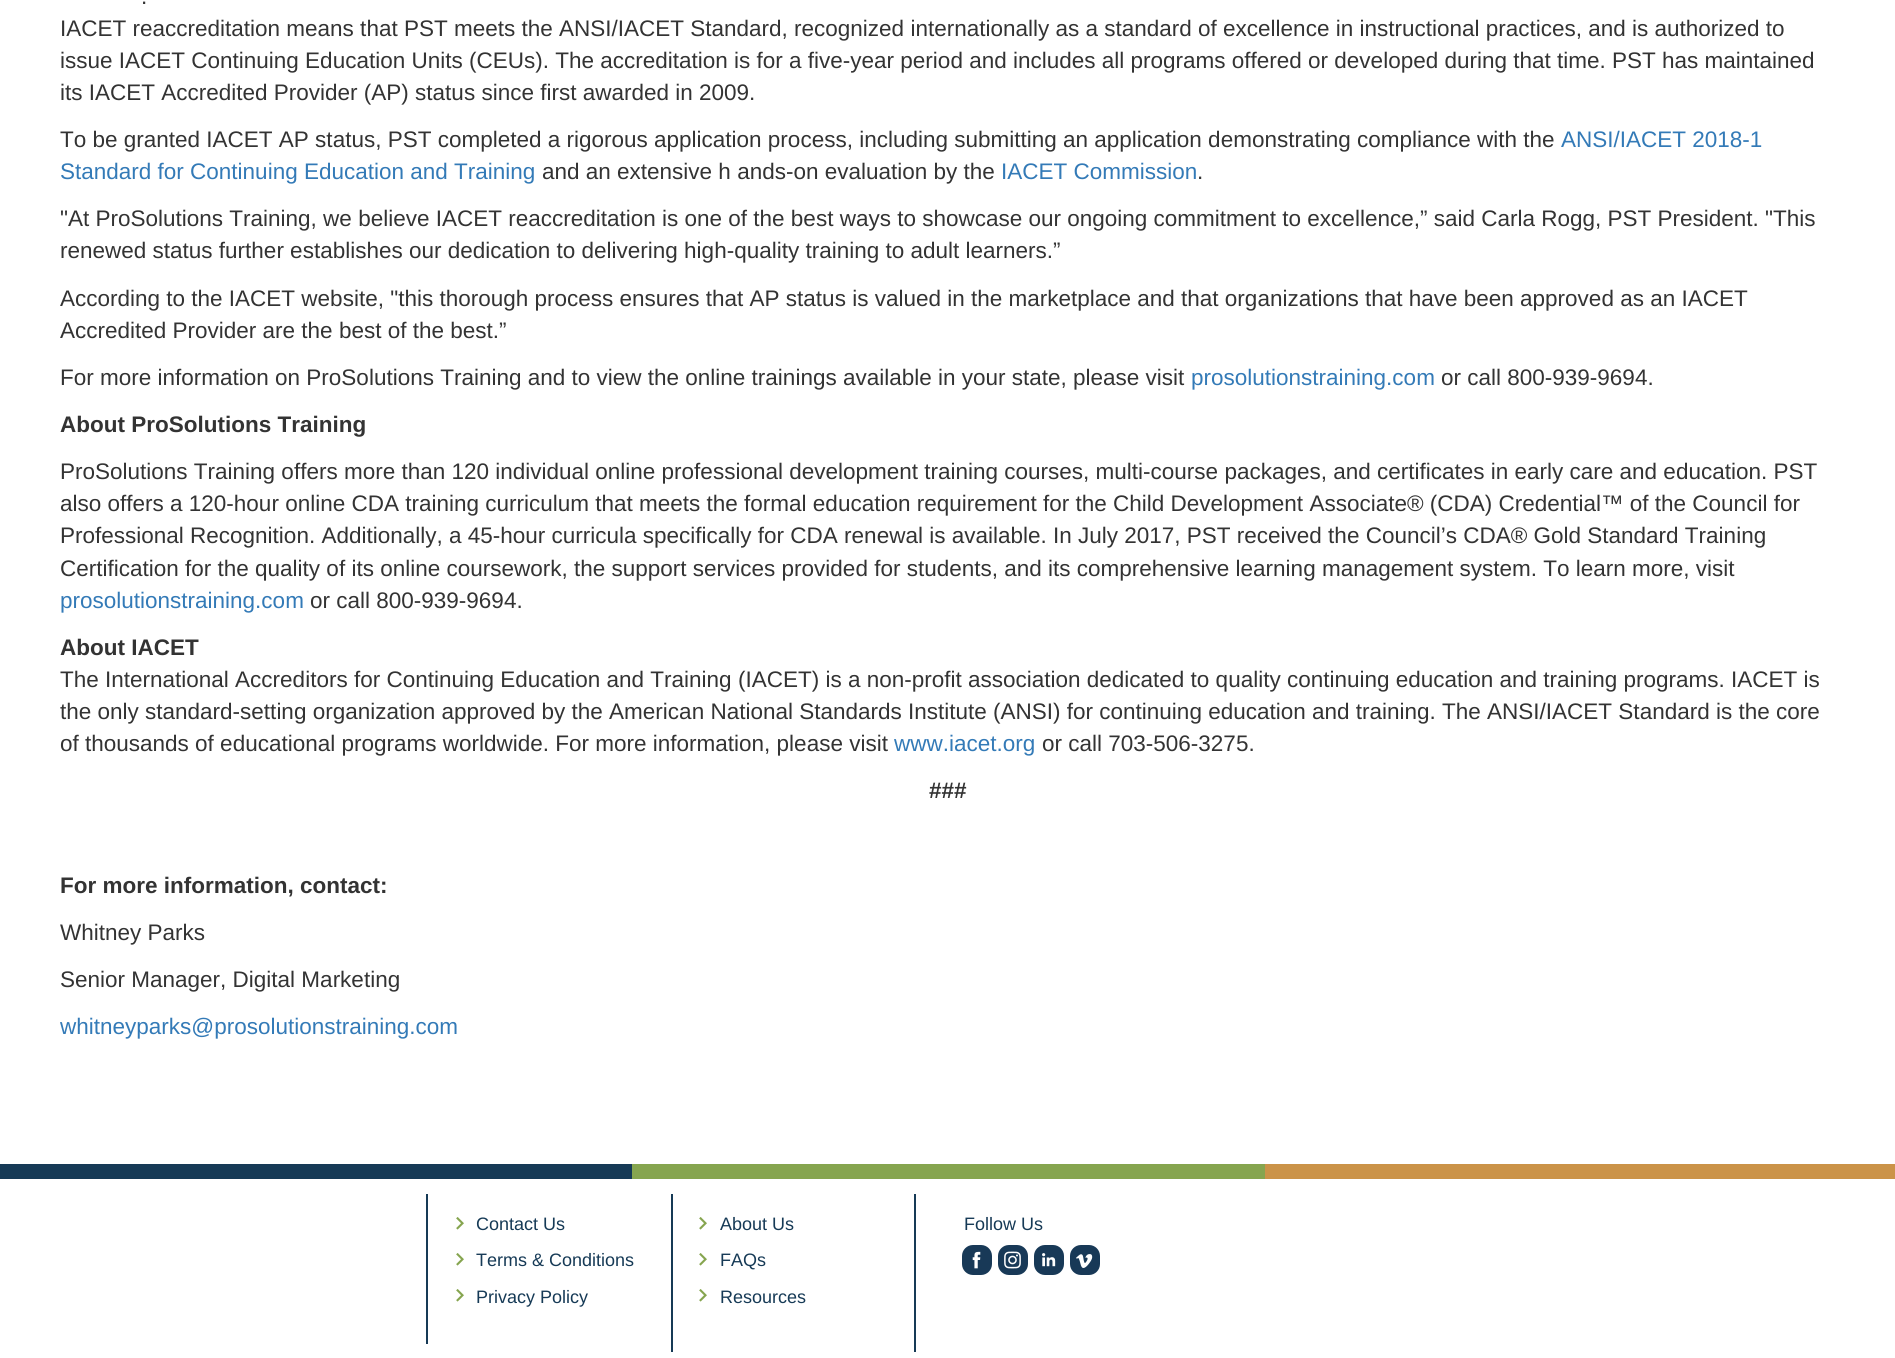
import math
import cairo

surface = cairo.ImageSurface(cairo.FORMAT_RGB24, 1895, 1358)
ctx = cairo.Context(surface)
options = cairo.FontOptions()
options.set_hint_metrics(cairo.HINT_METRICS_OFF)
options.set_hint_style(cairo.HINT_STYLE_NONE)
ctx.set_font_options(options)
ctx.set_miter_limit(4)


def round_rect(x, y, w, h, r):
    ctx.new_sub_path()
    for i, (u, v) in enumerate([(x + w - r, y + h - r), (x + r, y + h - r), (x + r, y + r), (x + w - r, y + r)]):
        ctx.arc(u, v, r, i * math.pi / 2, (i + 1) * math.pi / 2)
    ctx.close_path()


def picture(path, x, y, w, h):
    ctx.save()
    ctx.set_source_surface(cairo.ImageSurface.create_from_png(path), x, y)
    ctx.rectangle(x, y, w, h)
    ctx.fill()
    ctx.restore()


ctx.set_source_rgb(1, 1, 1)
ctx.paint()
ctx.select_font_face("Liberation Sans")
ctx.set_font_size(22.5)
ctx.set_source_rgb(0.2, 0.2, 0.2)
ctx.move_to(141, 4)
ctx.show_text(".")
ctx.move_to(60, 36)
ctx.show_text("IACET reaccreditation means that PST meets the ANSI/IACET Standard, recognized internationally as a standard of excellence in instructional practices, and is authorized to")
ctx.move_to(60, 68)
ctx.show_text("issue IACET Continuing Education Units (CEUs). The accreditation is for a five-year period and includes all programs offered or developed during that time. PST has maintained")
ctx.move_to(60, 100)
ctx.show_text("its IACET Accredited Provider (AP) status since first awarded in 2009.")
ctx.move_to(60, 147)
ctx.show_text("To be granted IACET AP status, PST completed a rigorous application process, including submitting an application demonstrating compliance with the")
ctx.set_source_rgb(0.2, 0.478, 0.718)
ctx.move_to(1561, 147)
ctx.show_text("ANSI/IACET 2018-1")
ctx.move_to(60, 179)
ctx.show_text("Standard for Continuing Education and Training")
ctx.set_source_rgb(0.2, 0.2, 0.2)
ctx.move_to(542, 179)
ctx.show_text("and an extensive h ands-on evaluation by the")
ctx.set_source_rgb(0.2, 0.478, 0.718)
ctx.move_to(1001, 179)
ctx.show_text("IACET Commission")
ctx.set_source_rgb(0.2, 0.2, 0.2)
ctx.move_to(1197, 179)
ctx.show_text(".")
ctx.move_to(60, 226)
ctx.show_text("\"At ProSolutions Training, we believe IACET reaccreditation is one of the best ways to showcase our ongoing commitment to excellence,” said Carla Rogg, PST President. \"This")
ctx.move_to(60, 258)
ctx.show_text("renewed status further establishes our dedication to delivering high-quality training to adult learners.”")
ctx.move_to(60, 306)
ctx.show_text("According to the IACET website, \"this thorough process ensures that AP status is valued in the marketplace and that organizations that have been approved as an IACET")
ctx.move_to(60, 338)
ctx.show_text("Accredited Provider are the best of the best.”")
ctx.move_to(60, 385)
ctx.show_text("For more information on ProSolutions Training and to view the online trainings available in your state, please visit")
ctx.set_source_rgb(0.2, 0.478, 0.718)
ctx.move_to(1191, 385)
ctx.show_text("prosolutionstraining.com")
ctx.set_source_rgb(0.2, 0.2, 0.2)
ctx.move_to(1441, 385)
ctx.show_text("or call 800-939-9694.")
ctx.select_font_face("Liberation Sans", cairo.FONT_SLANT_NORMAL, cairo.FONT_WEIGHT_BOLD)
ctx.move_to(60, 432)
ctx.show_text("About ProSolutions Training")
ctx.select_font_face("Liberation Sans")
ctx.move_to(60, 479)
ctx.show_text("ProSolutions Training offers more than 120 individual online professional development training courses, multi-course packages, and certificates in early care and education. PST")
ctx.move_to(60, 511)
ctx.show_text("also offers a 120-hour online CDA training curriculum that meets the formal education requirement for the Child Development Associate® (CDA) Credential™ of the Council for")
ctx.move_to(60, 543)
ctx.show_text("Professional Recognition. Additionally, a 45-hour curricula specifically for CDA renewal is available. In July 2017, PST received the Council’s CDA® Gold Standard Training")
ctx.move_to(60, 576)
ctx.show_text("Certification for the quality of its online coursework, the support services provided for students, and its comprehensive learning management system. To learn more, visit")
ctx.set_source_rgb(0.2, 0.478, 0.718)
ctx.move_to(60, 608)
ctx.show_text("prosolutionstraining.com")
ctx.set_source_rgb(0.2, 0.2, 0.2)
ctx.move_to(310, 608)
ctx.show_text("or call 800-939-9694.")
ctx.select_font_face("Liberation Sans", cairo.FONT_SLANT_NORMAL, cairo.FONT_WEIGHT_BOLD)
ctx.move_to(60, 655)
ctx.show_text("About IACET")
ctx.select_font_face("Liberation Sans")
ctx.move_to(60, 687)
ctx.show_text("The International Accreditors for Continuing Education and Training (IACET) is a non-profit association dedicated to quality continuing education and training programs. IACET is")
ctx.move_to(60, 719)
ctx.show_text("the only standard-setting organization approved by the American National Standards Institute (ANSI) for continuing education and training. The ANSI/IACET Standard is the core")
ctx.move_to(60, 751)
ctx.show_text("of thousands of educational programs worldwide. For more information, please visit")
ctx.set_source_rgb(0.2, 0.478, 0.718)
ctx.move_to(894, 751)
ctx.show_text("www.iacet.org")
ctx.set_source_rgb(0.2, 0.2, 0.2)
ctx.move_to(1042, 751)
ctx.show_text("or call 703-506-3275.")
ctx.select_font_face("Liberation Sans", cairo.FONT_SLANT_NORMAL, cairo.FONT_WEIGHT_BOLD)
ctx.move_to(929, 798)
ctx.show_text("###")
ctx.move_to(60, 893)
ctx.show_text("For more information, contact:")
ctx.select_font_face("Liberation Sans")
ctx.move_to(60, 940)
ctx.show_text("Whitney Parks")
ctx.move_to(60, 987)
ctx.show_text("Senior Manager, Digital Marketing")
ctx.set_source_rgb(0.2, 0.478, 0.718)
ctx.move_to(60, 1034)
ctx.show_text("whitneyparks@prosolutionstraining.com")
ctx.set_source_rgb(0.086, 0.227, 0.337)
ctx.rectangle(0, 1164, 632, 15)
ctx.fill()
ctx.set_source_rgb(0.525, 0.647, 0.31)
ctx.rectangle(632, 1164, 633, 15)
ctx.fill()
ctx.set_source_rgb(0.796, 0.576, 0.282)
ctx.rectangle(1265, 1164, 630, 15)
ctx.fill()
ctx.set_source_rgb(0.086, 0.227, 0.337)
ctx.rectangle(426, 1194, 2, 150)
ctx.fill()
ctx.rectangle(671, 1194, 2, 158)
ctx.fill()
picture("img1.png", 456, 1217, 8, 13)
ctx.set_font_size(18)
ctx.move_to(476, 1230)
ctx.show_text("Contact Us")
picture("img1.png", 456, 1253, 8, 13)
ctx.move_to(476, 1266)
ctx.show_text("Terms & Conditions")
picture("img1.png", 456, 1289, 8, 13)
ctx.move_to(476, 1303)
ctx.show_text("Privacy Policy")
ctx.rectangle(914, 1194, 2, 158)
ctx.fill()
picture("img1.png", 699, 1217, 8, 13)
ctx.move_to(720, 1230)
ctx.show_text("About Us")
picture("img1.png", 699, 1253, 8, 13)
ctx.move_to(720, 1266)
ctx.show_text("FAQs")
picture("img1.png", 699, 1289, 8, 13)
ctx.move_to(720, 1303)
ctx.show_text("Resources")
ctx.move_to(964, 1230)
ctx.show_text("Follow Us")
ctx.set_source_rgb(0.094, 0.224, 0.341)
round_rect(962, 1245, 30, 30, 11)
ctx.fill()
picture("img2.png", 972, 1251, 9, 18)
round_rect(998, 1245, 30, 30, 11)
ctx.fill()
picture("img3.png", 1004, 1251, 17, 18)
round_rect(1034, 1245, 30, 30, 11)
ctx.fill()
picture("img4.png", 1042, 1253, 14, 14)
round_rect(1070, 1245, 30, 30, 11)
ctx.fill()
picture("img5.png", 1076, 1254, 17, 14)
surface.write_to_png("page.png")
